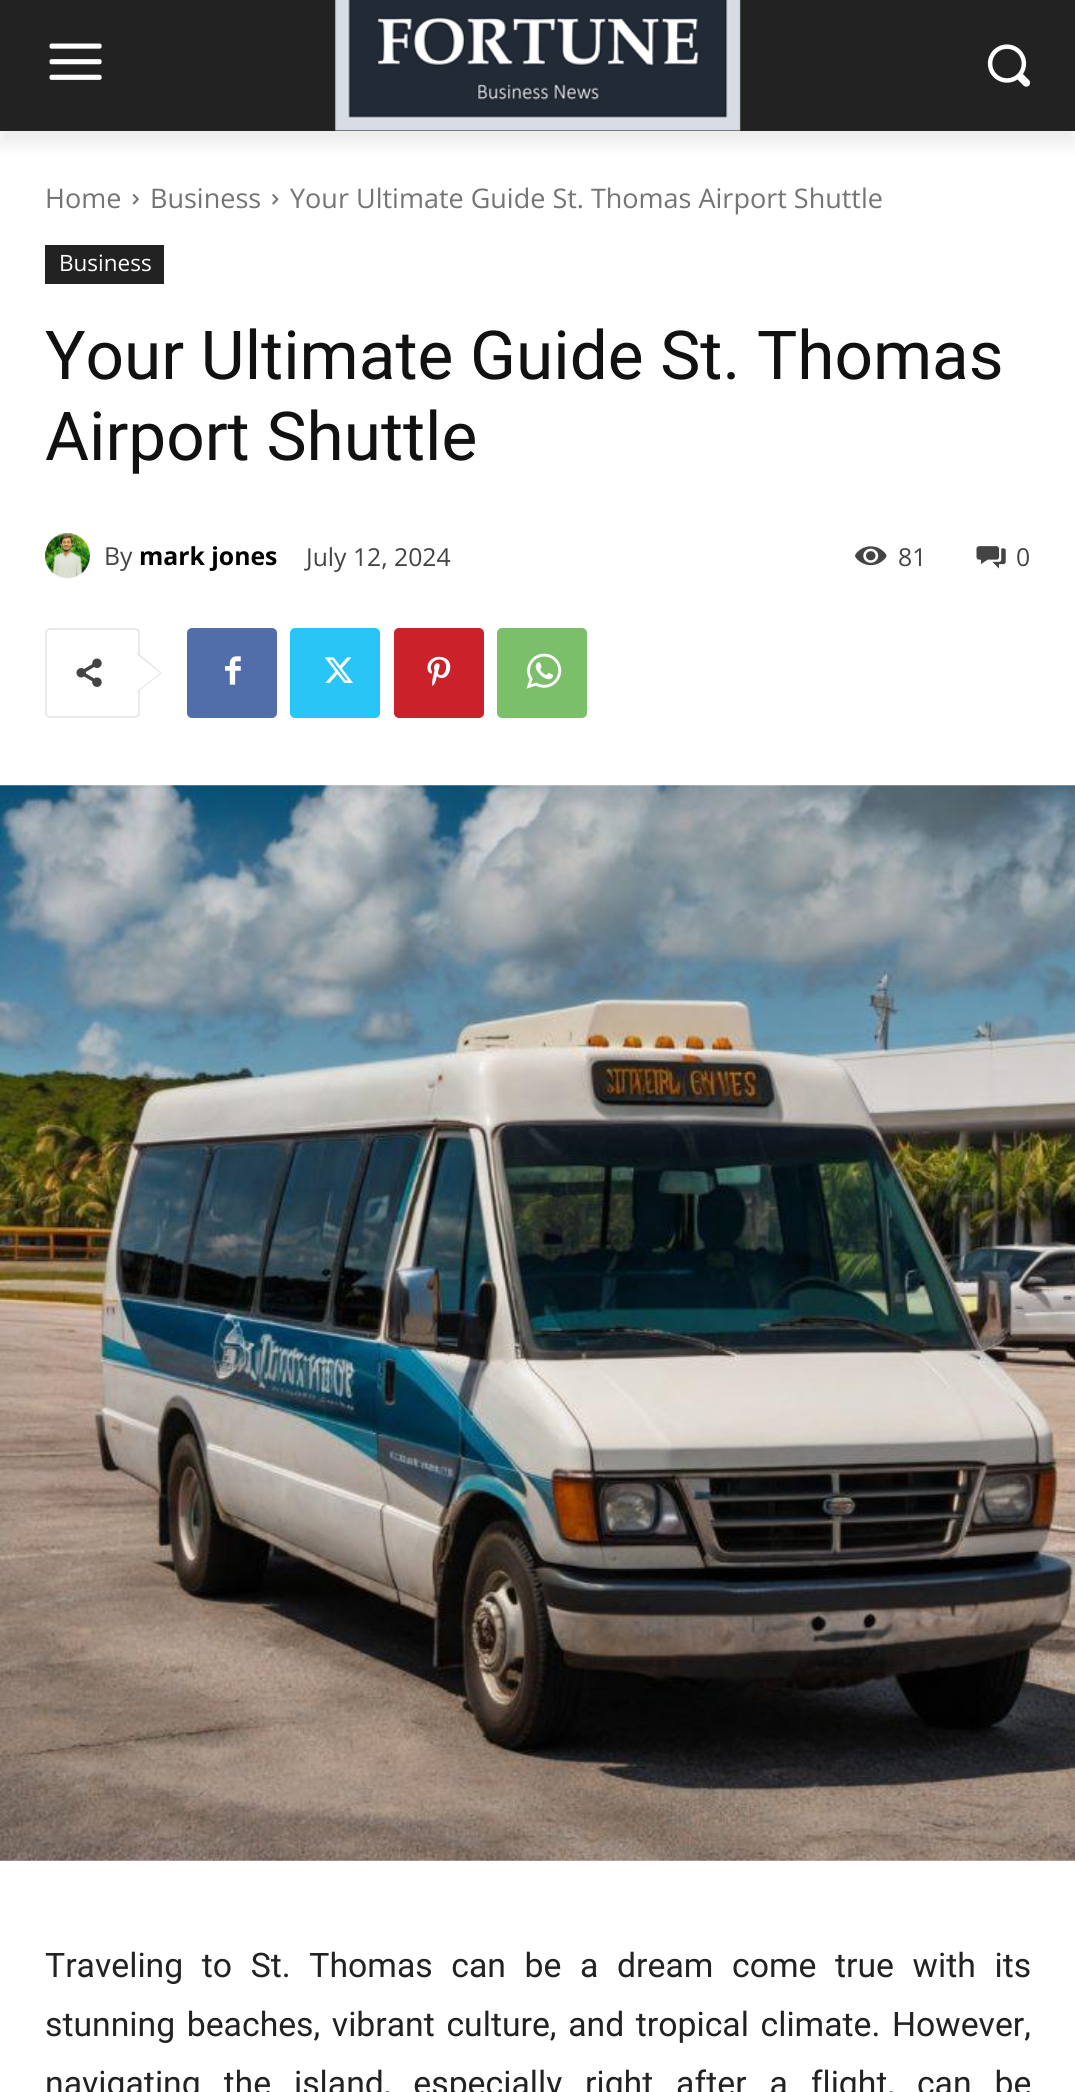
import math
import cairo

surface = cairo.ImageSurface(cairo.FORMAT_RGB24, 1075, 2092)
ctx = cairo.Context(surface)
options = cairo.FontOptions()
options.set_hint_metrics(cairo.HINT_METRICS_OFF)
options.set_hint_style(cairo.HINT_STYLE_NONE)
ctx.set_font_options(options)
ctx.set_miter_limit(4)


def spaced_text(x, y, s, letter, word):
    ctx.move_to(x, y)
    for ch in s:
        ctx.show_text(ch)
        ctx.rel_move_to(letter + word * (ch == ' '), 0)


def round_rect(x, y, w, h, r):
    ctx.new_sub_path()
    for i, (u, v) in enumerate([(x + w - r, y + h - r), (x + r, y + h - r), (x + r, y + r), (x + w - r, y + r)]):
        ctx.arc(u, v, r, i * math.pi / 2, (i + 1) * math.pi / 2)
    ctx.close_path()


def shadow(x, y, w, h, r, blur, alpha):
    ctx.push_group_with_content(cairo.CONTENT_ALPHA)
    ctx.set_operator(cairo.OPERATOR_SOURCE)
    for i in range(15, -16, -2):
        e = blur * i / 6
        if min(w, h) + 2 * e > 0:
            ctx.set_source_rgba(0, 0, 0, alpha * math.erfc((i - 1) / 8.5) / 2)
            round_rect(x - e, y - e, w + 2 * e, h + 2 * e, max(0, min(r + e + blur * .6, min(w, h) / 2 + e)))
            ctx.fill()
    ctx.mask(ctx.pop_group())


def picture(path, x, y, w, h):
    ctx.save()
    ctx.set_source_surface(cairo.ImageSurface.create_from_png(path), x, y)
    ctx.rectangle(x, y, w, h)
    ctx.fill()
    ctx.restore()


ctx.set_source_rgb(1, 1, 1)
ctx.paint()
ctx.set_source_rgb(0.133, 0.133, 0.133)
ctx.rectangle(0, 0, 1075, 131)
ctx.fill()
picture("img1.png", 49, 43, 53, 37)
picture("img2.png", 335, 0, 406, 131)
picture("img3.png", 987, 44, 44, 43)
ctx.save()
ctx.set_fill_rule(cairo.FILL_RULE_EVEN_ODD)
ctx.new_path()
ctx.move_to(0, 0)
ctx.line_to(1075, 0)
ctx.line_to(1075, 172)
ctx.line_to(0, 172)
ctx.close_path()
ctx.move_to(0, 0)
ctx.line_to(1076, 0)
ctx.line_to(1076, 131)
ctx.line_to(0, 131)
ctx.close_path()
ctx.clip()
ctx.set_source_rgb(0, 0, 0)
shadow(0, 14, 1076, 130, 0, 9, 0.08)
ctx.restore()
ctx.select_font_face("Open Sans")
ctx.set_font_size(27)
ctx.set_source_rgb(0.455, 0.455, 0.455)
ctx.move_to(45, 208)
ctx.show_text("Home")
picture("img4.png", 132, 194, 7, 11)
ctx.move_to(150, 208)
ctx.show_text("Business")
picture("img5.png", 272, 194, 7, 11)
ctx.move_to(290, 208)
ctx.show_text("Your Ultimate Guide St. Thomas Airport Shuttle")
ctx.set_source_rgb(0.133, 0.133, 0.133)
ctx.rectangle(45, 245, 119, 39)
ctx.fill()
ctx.set_font_size(22.5)
ctx.set_source_rgb(1, 1, 1)
ctx.move_to(59, 271)
ctx.show_text("Business")
ctx.select_font_face("Roboto")
ctx.set_font_size(67.5)
ctx.set_source_rgb(0.067, 0.067, 0.067)
ctx.move_to(45, 379)
ctx.show_text("Your Ultimate Guide St. Thomas")
ctx.move_to(45, 460)
ctx.show_text("Airport Shuttle")
picture("img6.png", 45, 533, 45, 46)
ctx.select_font_face("Open Sans")
ctx.set_font_size(24.75)
ctx.set_source_rgb(0.267, 0.267, 0.267)
ctx.move_to(104, 565)
ctx.show_text("By")
ctx.select_font_face("Open Sans", cairo.FONT_SLANT_NORMAL, cairo.FONT_WEIGHT_BOLD)
ctx.set_source_rgb(0, 0, 0)
ctx.move_to(139, 565)
ctx.show_text("mark jones")
ctx.select_font_face("Open Sans")
ctx.set_source_rgb(0.267, 0.267, 0.267)
ctx.move_to(306, 566)
ctx.show_text("July 12, 2024")
picture("img7.png", 855, 546, 32, 20)
ctx.move_to(898, 566)
ctx.show_text("81")
picture("img8.png", 976, 546, 30, 23)
ctx.move_to(1016, 566)
ctx.show_text("0")
round_rect(46, 629, 93, 88, 4)
ctx.set_source_rgb(0.914, 0.914, 0.914)
ctx.stroke()
ctx.new_path()
ctx.move_to(137, 693)
ctx.line_to(137, 652)
ctx.line_to(162, 673)
ctx.close_path()
ctx.fill()
picture("img9.png", 76, 658, 26, 29)
ctx.set_source_rgb(1, 1, 1)
ctx.new_path()
ctx.move_to(137, 691)
ctx.line_to(137, 655)
ctx.line_to(160, 673)
ctx.close_path()
ctx.fill()
ctx.set_source_rgb(0.318, 0.431, 0.671)
round_rect(187, 628, 90, 90, 5)
ctx.fill()
picture("img10.png", 225, 656, 16, 29)
ctx.set_source_rgb(0.161, 0.773, 0.965)
round_rect(290, 628, 90, 90, 5)
ctx.fill()
picture("img11.png", 324, 657, 29, 26)
ctx.set_source_rgb(0.792, 0.129, 0.165)
round_rect(394, 628, 90, 90, 5)
ctx.fill()
picture("img12.png", 427, 656, 24, 30)
ctx.set_source_rgb(0.482, 0.749, 0.416)
round_rect(497, 628, 90, 90, 5)
ctx.fill()
picture("img13.png", 526, 653, 36, 36)
picture("img14.png", 0, 785, 1075, 1076)
ctx.select_font_face("Roboto")
ctx.set_font_size(33.75)
ctx.set_source_rgb(0.133, 0.133, 0.133)
spaced_text(45, 1977, "Traveling to St. Thomas can be a dream come true with its", 0, 10.25)
spaced_text(45, 2036, "stunning beaches, vibrant culture, and tropical climate. However,", 0, 3.25)
spaced_text(45, 2095, "navigating the island, especially right after a flight, can be", 0, 14.5)
surface.write_to_png("page.png")
